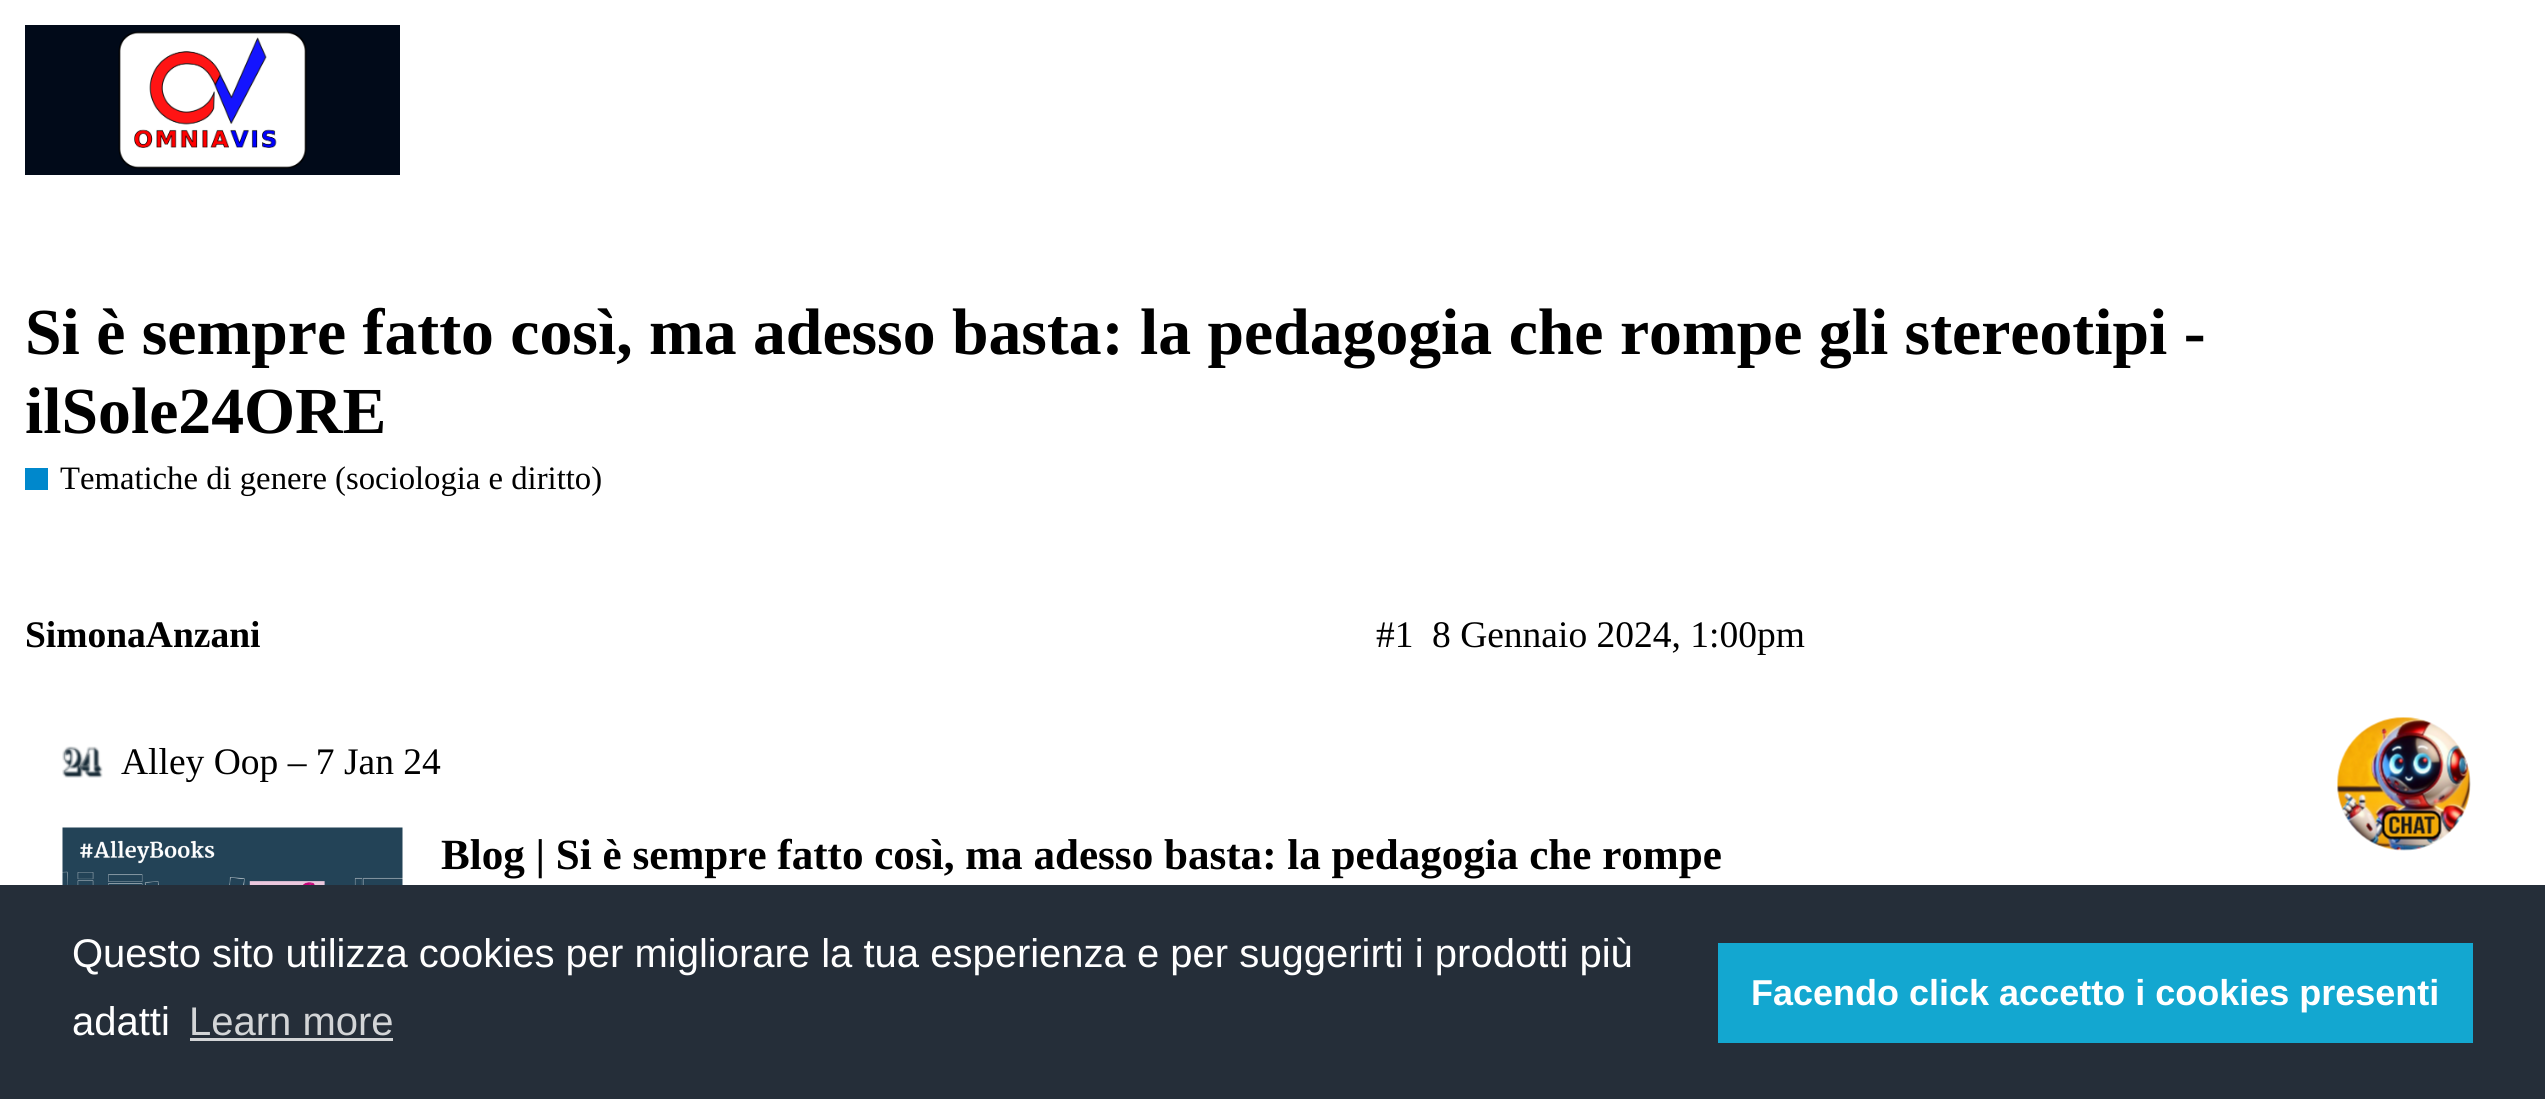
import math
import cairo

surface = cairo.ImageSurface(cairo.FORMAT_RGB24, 2545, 1099)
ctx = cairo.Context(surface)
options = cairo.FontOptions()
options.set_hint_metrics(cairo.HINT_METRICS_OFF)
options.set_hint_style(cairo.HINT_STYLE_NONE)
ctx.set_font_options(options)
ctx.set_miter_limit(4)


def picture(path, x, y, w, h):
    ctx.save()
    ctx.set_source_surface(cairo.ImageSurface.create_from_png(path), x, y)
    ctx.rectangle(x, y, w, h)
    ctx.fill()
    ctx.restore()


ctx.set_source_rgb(1, 1, 1)
ctx.paint()
picture("img1.png", 25, 25, 375, 150)
ctx.select_font_face("Liberation Serif", cairo.FONT_SLANT_NORMAL, cairo.FONT_WEIGHT_BOLD)
ctx.set_font_size(65.7)
ctx.set_source_rgb(0, 0, 0)
ctx.move_to(25, 354)
ctx.show_text("Si è sempre fatto così, ma adesso basta: la pedagogia che rompe gli stereotipi -")
ctx.move_to(25, 433)
ctx.show_text("ilSole24ORE")
ctx.set_source_rgb(0, 0.533, 0.8)
ctx.rectangle(25, 468, 23, 22)
ctx.fill()
ctx.select_font_face("Liberation Serif")
ctx.set_font_size(32.7)
ctx.set_source_rgb(0, 0, 0)
ctx.move_to(60, 489)
ctx.show_text("Tematiche di genere (sociologia e diritto)")
ctx.select_font_face("Liberation Serif", cairo.FONT_SLANT_NORMAL, cairo.FONT_WEIGHT_BOLD)
ctx.set_font_size(37.5)
ctx.move_to(25, 647)
ctx.show_text("SimonaAnzani")
ctx.select_font_face("Liberation Serif")
ctx.move_to(1376, 647)
ctx.show_text("#1")
ctx.move_to(1432, 647)
ctx.show_text("8 Gennaio 2024, 1:00pm")
picture("img2.png", 62, 746, 41, 32)
ctx.move_to(121, 774)
ctx.show_text("Alley Oop – 7 Jan 24")
picture("img3.png", 62, 827, 341, 58)
ctx.select_font_face("Liberation Serif", cairo.FONT_SLANT_NORMAL, cairo.FONT_WEIGHT_BOLD)
ctx.set_font_size(43.1)
ctx.move_to(441, 869)
ctx.show_text("Blog | Si è sempre fatto così, ma adesso basta: la pedagogia che rompe")
picture("img4.png", 2337, 717, 134, 134)
ctx.set_source_rgb(0.145, 0.18, 0.224)
ctx.rectangle(0, 885, 2545, 214)
ctx.fill()
ctx.select_font_face("Liberation Sans")
ctx.set_font_size(40)
ctx.set_source_rgb(1, 1, 1)
ctx.move_to(72, 967)
ctx.show_text("Questo sito utilizza cookies per migliorare la tua esperienza e per suggerirti i prodotti più")
ctx.move_to(72, 1035)
ctx.show_text("adatti")
ctx.set_source_rgb(0.827, 0.835, 0.843)
ctx.move_to(189, 1035)
ctx.show_text("Learn more")
ctx.rectangle(190, 1038, 203, 3)
ctx.fill()
ctx.set_source_rgb(0.078, 0.655, 0.816)
ctx.rectangle(1718, 943, 755, 100)
ctx.fill()
ctx.select_font_face("Liberation Sans", cairo.FONT_SLANT_NORMAL, cairo.FONT_WEIGHT_BOLD)
ctx.set_font_size(36)
ctx.set_source_rgb(1, 1, 1)
ctx.move_to(1751, 1005)
ctx.show_text("Facendo click accetto i cookies presenti")
surface.write_to_png("page.png")
